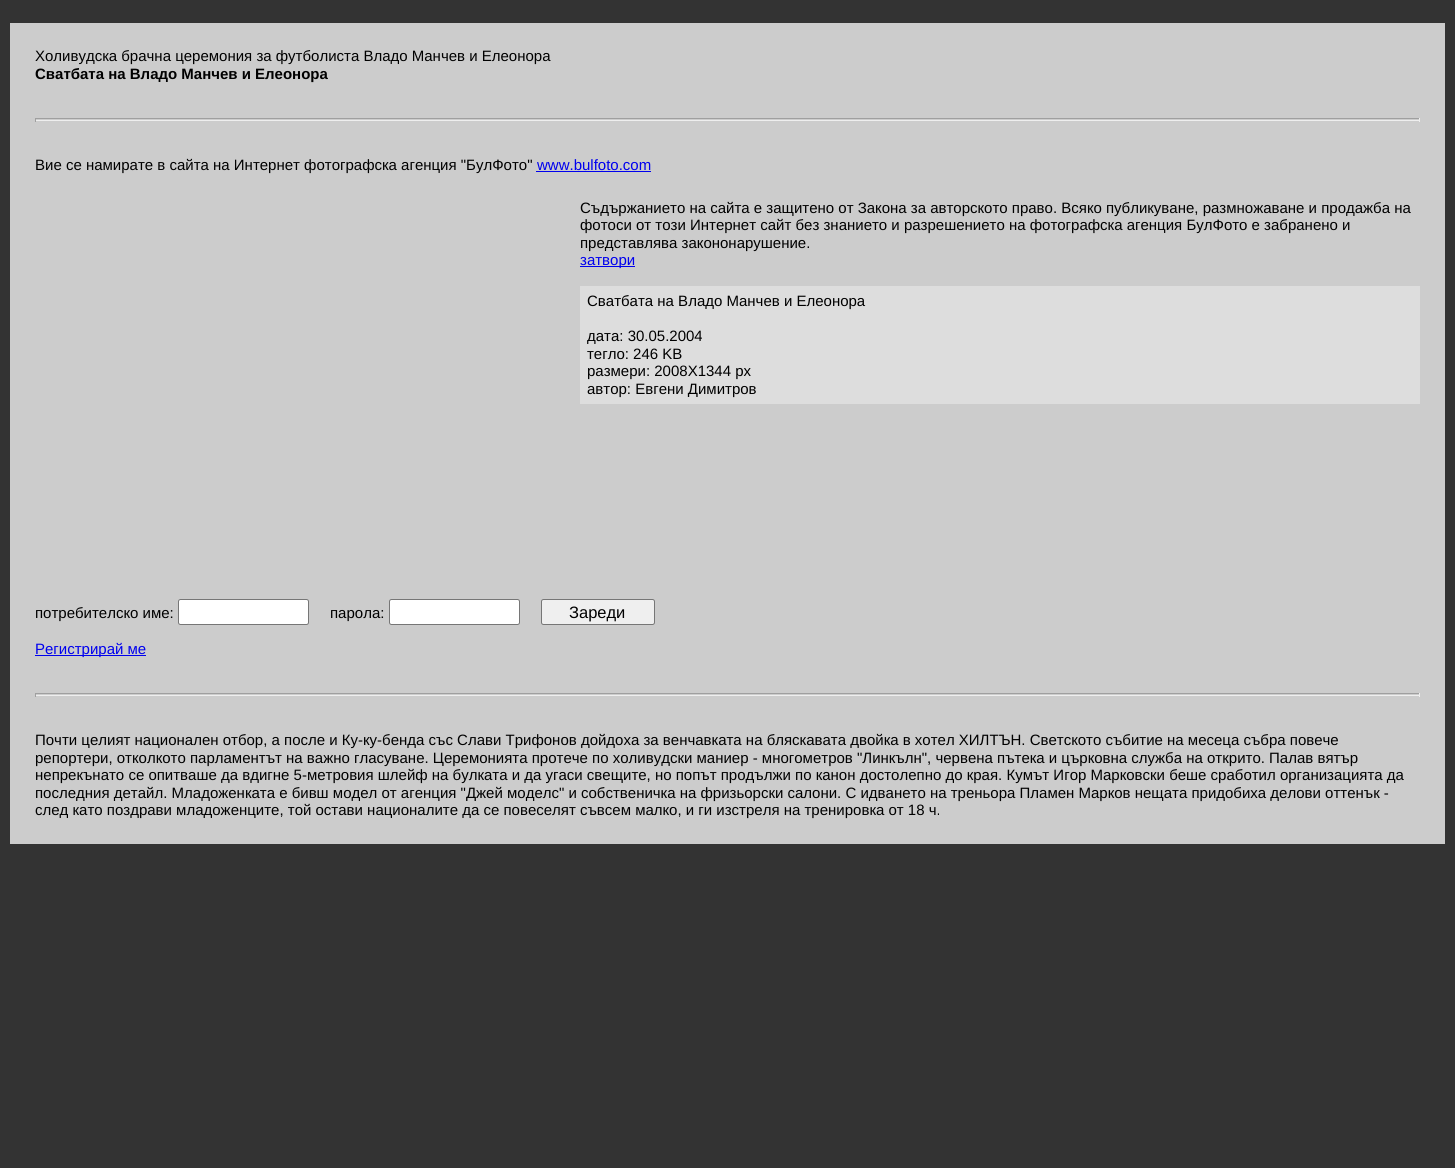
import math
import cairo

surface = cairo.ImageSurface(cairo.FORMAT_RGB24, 1455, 1168)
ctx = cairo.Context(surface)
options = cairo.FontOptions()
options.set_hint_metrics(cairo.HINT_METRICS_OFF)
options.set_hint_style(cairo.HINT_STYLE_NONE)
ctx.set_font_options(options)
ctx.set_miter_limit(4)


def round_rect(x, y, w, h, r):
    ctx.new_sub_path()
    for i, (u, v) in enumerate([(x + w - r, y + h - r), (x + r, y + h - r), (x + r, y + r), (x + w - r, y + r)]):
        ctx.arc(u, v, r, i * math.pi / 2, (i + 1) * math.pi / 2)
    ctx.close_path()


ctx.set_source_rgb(0.2, 0.2, 0.2)
ctx.paint()
ctx.set_source_rgb(0.8, 0.8, 0.8)
ctx.rectangle(10, 23, 1435, 821)
ctx.fill()
ctx.select_font_face("Liberation Sans")
ctx.set_font_size(15)
ctx.set_source_rgb(0, 0, 0)
ctx.move_to(35, 61)
ctx.show_text("Холивудска брачна церемония за футболиста Владо Манчев и Елеонора")
ctx.select_font_face("Liberation Sans", cairo.FONT_SLANT_NORMAL, cairo.FONT_WEIGHT_BOLD)
ctx.move_to(35, 79)
ctx.show_text("Сватбата на Владо Манчев и Елеонора")
ctx.set_source_rgb(0.624, 0.624, 0.624)
ctx.rectangle(35, 118, 1385, 1)
ctx.fill()
ctx.set_source_rgb(0.933, 0.933, 0.933)
ctx.rectangle(1419, 118, 1, 4)
ctx.fill()
ctx.rectangle(35, 120, 1385, 1)
ctx.fill()
ctx.set_source_rgb(0.624, 0.624, 0.624)
ctx.rectangle(35, 118, 1, 4)
ctx.fill()
ctx.select_font_face("Liberation Sans")
ctx.set_source_rgb(0, 0, 0)
ctx.move_to(35, 170)
ctx.show_text("Вие се намирате в сайта на Интернет фотографска агенция \"БулФото\"")
ctx.set_source_rgb(0, 0, 0.933)
ctx.move_to(537, 170)
ctx.show_text("www.bulfoto.com")
ctx.rectangle(536, 171, 115, 1)
ctx.fill()
ctx.set_source_rgb(0, 0, 0)
ctx.move_to(580, 213)
ctx.show_text("Съдържанието на сайта е защитено от Закона за авторското право. Всяко публикуване, размножаване и продажба на")
ctx.move_to(580, 230)
ctx.show_text("фотоси от този Интернет сайт без знанието и разрешението на фотографска агенция БулФото е забранено и")
ctx.move_to(580, 248)
ctx.show_text("представлява закононарушение.")
ctx.set_source_rgb(0, 0, 0.933)
ctx.rectangle(580, 266, 55, 1)
ctx.fill()
ctx.move_to(580, 265)
ctx.show_text("затвори")
ctx.set_source_rgb(0.867, 0.867, 0.867)
ctx.rectangle(580, 286, 840, 118)
ctx.fill()
ctx.set_source_rgb(0, 0, 0)
ctx.move_to(587, 306)
ctx.show_text("Сватбата на Владо Манчев и Елеонора")
ctx.move_to(587, 341)
ctx.show_text("дата: 30.05.2004")
ctx.move_to(587, 359)
ctx.show_text("тегло: 246 KB")
ctx.move_to(587, 376)
ctx.show_text("размери: 2008X1344 px")
ctx.move_to(587, 394)
ctx.show_text("автор: Евгени Димитров")
ctx.move_to(35, 618)
ctx.show_text("потребителско име:")
ctx.set_source_rgb(1, 1, 1)
round_rect(178.5, 599.5, 130, 25, 2)
ctx.fill_preserve()
ctx.set_source_rgb(0.463, 0.463, 0.463)
ctx.set_line_width(1)
ctx.stroke()
ctx.set_source_rgb(0, 0, 0)
ctx.move_to(330, 618)
ctx.show_text("парола:")
ctx.set_source_rgb(1, 1, 1)
round_rect(389.5, 599.5, 130, 25, 2)
ctx.fill_preserve()
ctx.set_source_rgb(0.463, 0.463, 0.463)
ctx.stroke()
ctx.set_source_rgb(0.937, 0.937, 0.937)
round_rect(541.5, 599.5, 113, 25, 2)
ctx.fill_preserve()
ctx.set_source_rgb(0.463, 0.463, 0.463)
ctx.stroke()
ctx.set_font_size(16.5)
ctx.set_source_rgb(0, 0, 0)
ctx.move_to(569, 618)
ctx.show_text("Зареди")
ctx.set_source_rgb(0, 0, 0.933)
ctx.rectangle(35, 655, 111, 1)
ctx.fill()
ctx.set_font_size(15)
ctx.move_to(35, 654)
ctx.show_text("Регистрирай ме")
ctx.set_source_rgb(0.624, 0.624, 0.624)
ctx.rectangle(35, 693, 1385, 1)
ctx.fill()
ctx.set_source_rgb(0.933, 0.933, 0.933)
ctx.rectangle(1419, 693, 1, 4)
ctx.fill()
ctx.rectangle(35, 695, 1385, 1)
ctx.fill()
ctx.set_source_rgb(0.624, 0.624, 0.624)
ctx.rectangle(35, 693, 1, 4)
ctx.fill()
ctx.set_source_rgb(0, 0, 0)
ctx.move_to(35, 745)
ctx.show_text("Почти целият национален отбор, а после и Ку-ку-бенда със Слави Трифонов дойдоха за венчавката на бляскавата двойка в хотел ХИЛТЪН. Светското събитие на месеца събра повече")
ctx.move_to(35, 763)
ctx.show_text("репортери, отколкото парламентът на важно гласуване. Церемонията протече по холивудски маниер - многометров \"Линкълн\", червена пътека и църковна служба на открито. Палав вятър")
ctx.move_to(35, 780)
ctx.show_text("непрекънато се опитваше да вдигне 5-метровия шлейф на булката и да угаси свещите, но попът продължи по канон достолепно до края. Кумът Игор Марковски беше сработил организацията да")
ctx.move_to(35, 798)
ctx.show_text("последния детайл. Младоженката е бивш модел от агенция \"Джей моделс\" и собственичка на фризьорски салони. С идването на треньора Пламен Марков нещата придобиха делови оттенък -")
ctx.move_to(35, 815)
ctx.show_text("след като поздрави младоженците, той остави националите да се повеселят съвсем малко, и ги изстреля на тренировка от 18 ч.")
surface.write_to_png("page.png")
